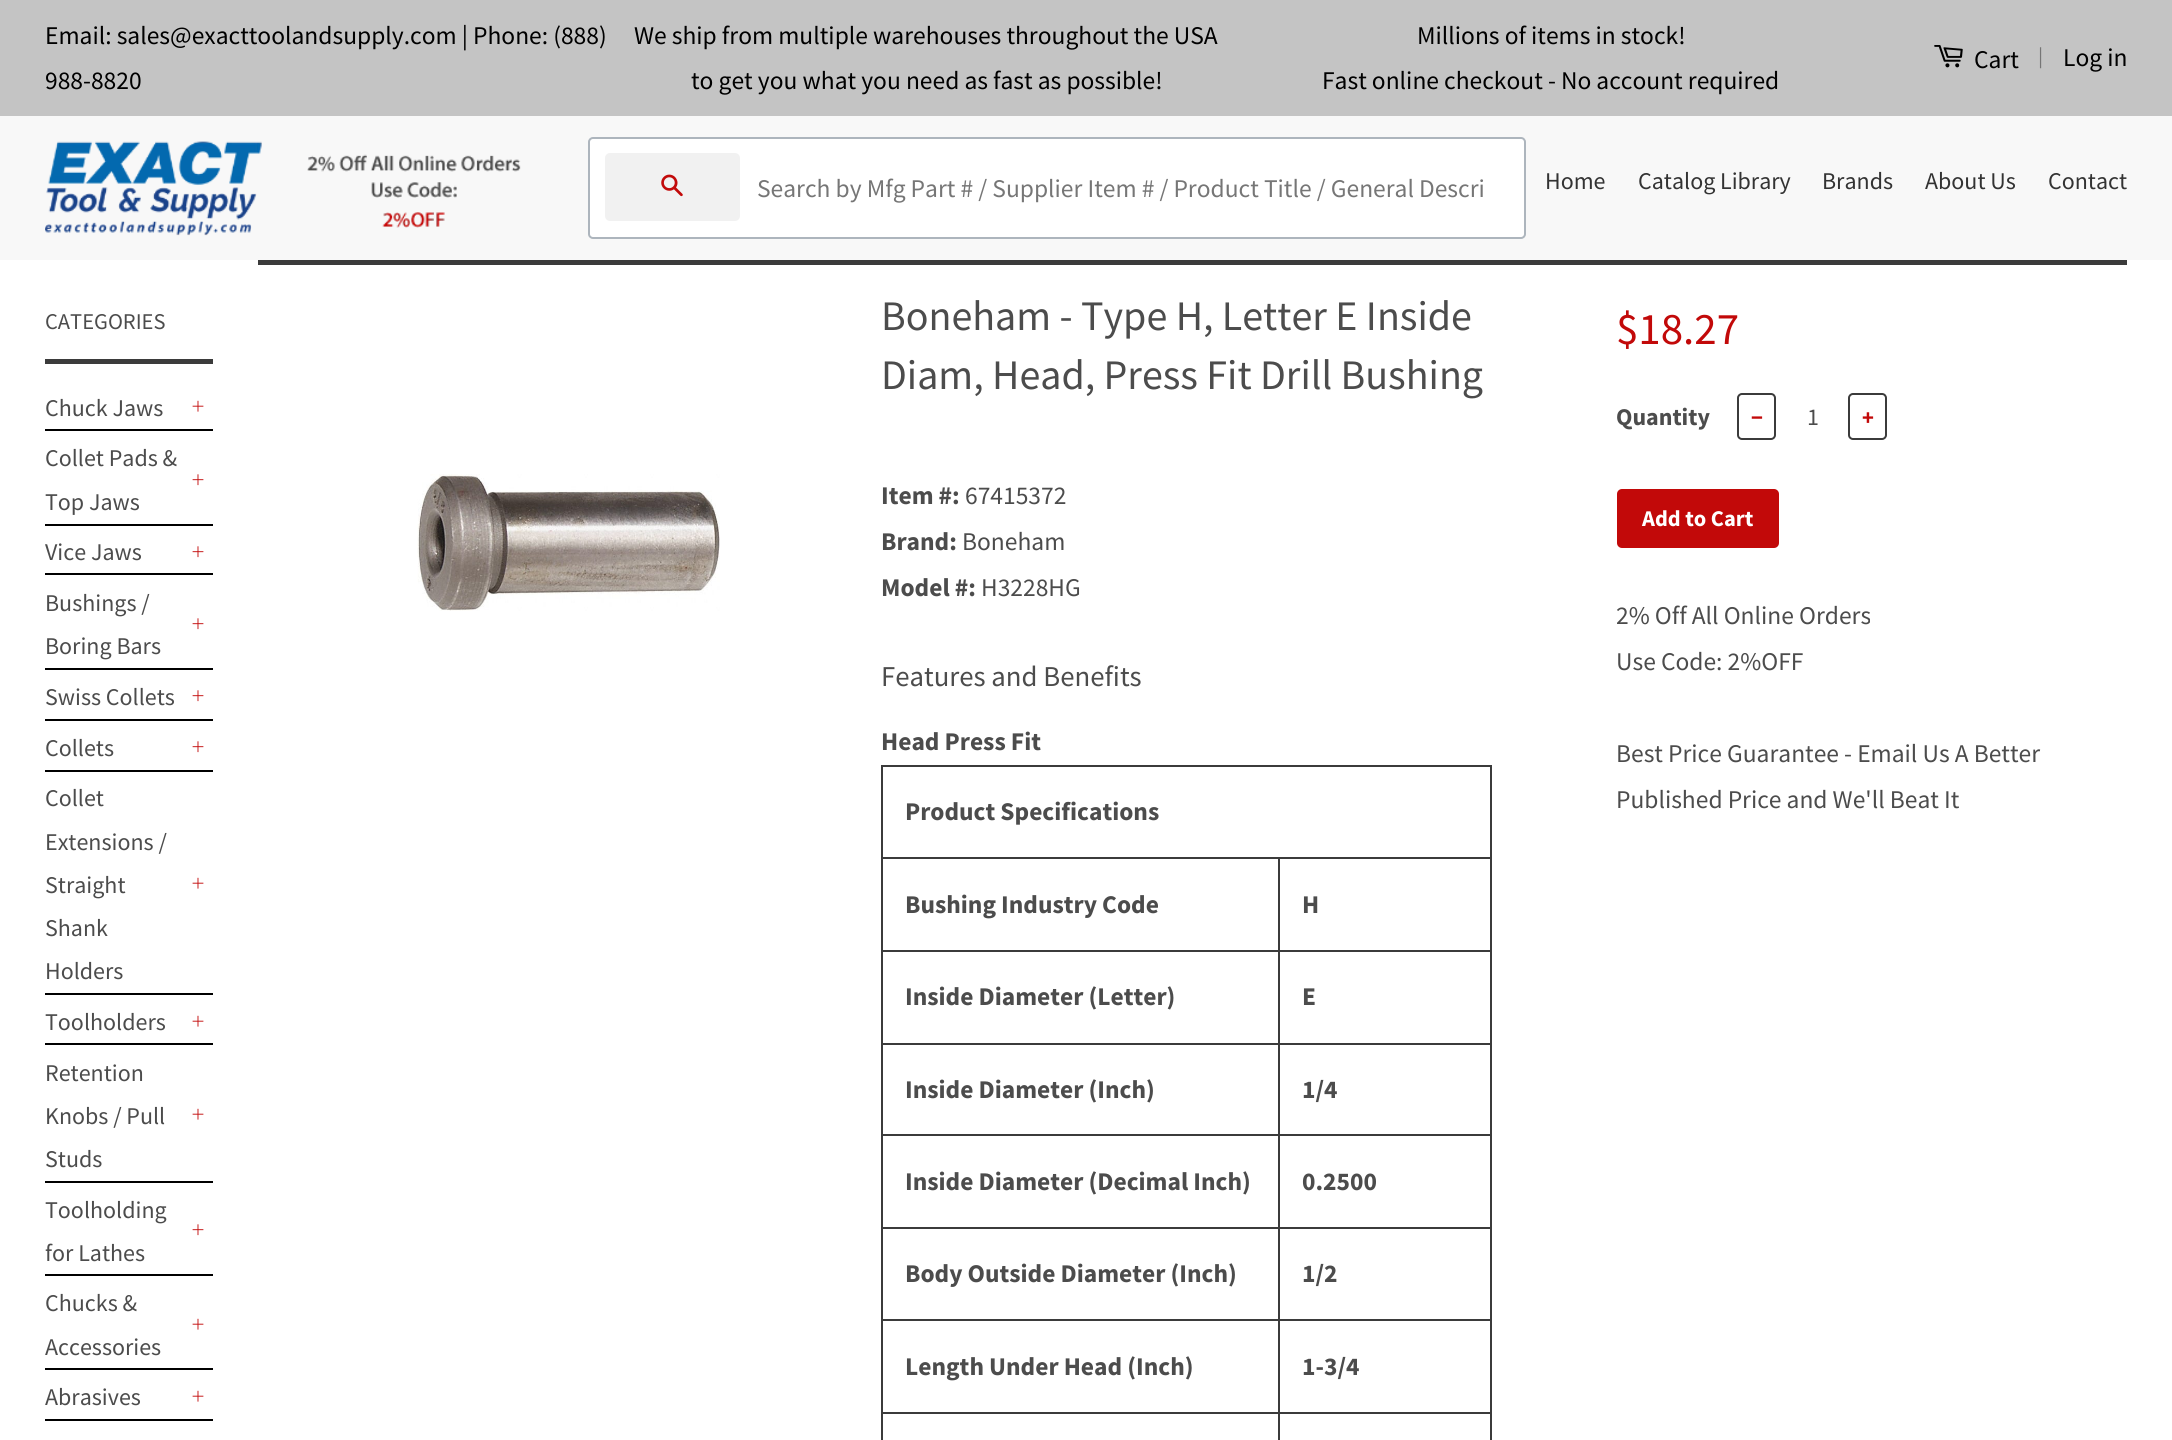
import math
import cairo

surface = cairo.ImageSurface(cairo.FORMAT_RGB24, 2172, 1440)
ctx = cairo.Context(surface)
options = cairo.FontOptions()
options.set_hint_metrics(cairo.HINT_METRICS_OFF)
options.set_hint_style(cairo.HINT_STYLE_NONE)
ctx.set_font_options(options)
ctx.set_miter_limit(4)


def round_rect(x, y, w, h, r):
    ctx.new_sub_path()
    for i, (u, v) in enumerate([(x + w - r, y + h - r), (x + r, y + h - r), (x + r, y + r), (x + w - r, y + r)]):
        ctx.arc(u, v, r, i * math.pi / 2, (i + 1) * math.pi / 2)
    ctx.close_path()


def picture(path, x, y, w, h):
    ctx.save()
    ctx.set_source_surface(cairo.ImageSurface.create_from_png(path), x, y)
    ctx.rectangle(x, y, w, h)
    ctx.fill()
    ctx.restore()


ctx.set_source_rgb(1, 1, 1)
ctx.paint()
ctx.set_source_rgb(0.769, 0.769, 0.769)
ctx.rectangle(0, 0, 2172, 116)
ctx.fill()
ctx.select_font_face("Source Sans Pro")
ctx.set_font_size(25.5)
ctx.set_source_rgb(0, 0, 0)
ctx.move_to(45, 44)
ctx.show_text("Email: sales@exacttoolandsupply.com | Phone: (888)")
ctx.move_to(45, 89)
ctx.show_text("988-8820")
ctx.move_to(634, 44)
ctx.show_text("We ship from multiple warehouses throughout the USA")
ctx.move_to(691, 89)
ctx.show_text("to get you what you need as fast as possible!")
ctx.move_to(1417, 44)
ctx.show_text("Millions of items in stock!")
ctx.move_to(1322, 89)
ctx.show_text("Fast online checkout - No account required")
picture("img1.png", 1934, 45, 29, 23)
ctx.move_to(1974, 68)
ctx.show_text("Cart")
ctx.set_font_size(21)
ctx.set_source_rgb(0.463, 0.463, 0.463)
ctx.move_to(2038, 63)
ctx.show_text("|")
ctx.set_font_size(25.5)
ctx.set_source_rgb(0, 0, 0)
ctx.move_to(2063, 66)
ctx.show_text("Log in")
ctx.set_source_rgb(0.969, 0.969, 0.969)
ctx.rectangle(0, 116, 2172, 144)
ctx.fill()
picture("img2.png", 45, 141, 476, 95)
ctx.set_source_rgb(1, 1, 1)
round_rect(589, 138, 936, 100, 4)
ctx.fill_preserve()
ctx.set_source_rgb(0.678, 0.71, 0.741)
ctx.stroke()
ctx.set_source_rgb(0.945, 0.945, 0.945)
round_rect(605, 153, 135, 68, 5)
ctx.fill()
picture("img3.png", 661, 174, 22, 23)
ctx.set_source_rgb(0.463, 0.463, 0.463)
ctx.move_to(757, 197)
ctx.show_text("Search by Mfg Part # / Supplier Item # / Product Title / General Descri")
ctx.set_font_size(24)
ctx.set_source_rgb(0.2, 0.2, 0.2)
ctx.move_to(1545, 189)
ctx.show_text("Home")
ctx.move_to(1638, 189)
ctx.show_text("Catalog Library")
ctx.move_to(1822, 189)
ctx.show_text("Brands")
ctx.move_to(1925, 189)
ctx.show_text("About Us")
ctx.move_to(2048, 189)
ctx.show_text("Contact")
ctx.set_source_rgb(0.231, 0.231, 0.231)
ctx.rectangle(45, 359, 168, 5)
ctx.fill()
ctx.set_font_size(22.5)
ctx.set_source_rgb(0.298, 0.298, 0.298)
ctx.move_to(45, 329)
ctx.show_text("CATEGORIES")
ctx.set_source_rgb(0, 0, 0)
ctx.rectangle(45, 429, 168, 2)
ctx.fill()
ctx.set_font_size(24)
ctx.set_source_rgb(0.298, 0.298, 0.298)
ctx.move_to(45, 416)
ctx.show_text("Chuck Jaws")
picture("img4.png", 192, 400, 12, 12)
ctx.set_source_rgb(0, 0, 0)
ctx.rectangle(45, 524, 168, 2)
ctx.fill()
ctx.set_source_rgb(0.298, 0.298, 0.298)
ctx.move_to(45, 466)
ctx.show_text("Collet Pads &")
ctx.move_to(45, 510)
ctx.show_text("Top Jaws")
picture("img5.png", 192, 474, 12, 12)
ctx.set_source_rgb(0, 0, 0)
ctx.rectangle(45, 573, 168, 2)
ctx.fill()
ctx.set_source_rgb(0.298, 0.298, 0.298)
ctx.move_to(45, 560)
ctx.show_text("Vice Jaws")
picture("img5.png", 192, 546, 12, 12)
ctx.set_source_rgb(0, 0, 0)
ctx.rectangle(45, 668, 168, 2)
ctx.fill()
ctx.set_source_rgb(0.298, 0.298, 0.298)
ctx.move_to(45, 611)
ctx.show_text("Bushings /")
ctx.move_to(45, 654)
ctx.show_text("Boring Bars")
picture("img5.png", 192, 618, 12, 12)
ctx.set_source_rgb(0, 0, 0)
ctx.rectangle(45, 719, 168, 2)
ctx.fill()
ctx.set_source_rgb(0.298, 0.298, 0.298)
ctx.move_to(45, 705)
ctx.show_text("Swiss Collets")
picture("img5.png", 192, 690, 12, 12)
ctx.set_source_rgb(0, 0, 0)
ctx.rectangle(45, 770, 168, 2)
ctx.fill()
ctx.set_source_rgb(0.298, 0.298, 0.298)
ctx.move_to(45, 756)
ctx.show_text("Collets")
picture("img5.png", 192, 741, 12, 12)
ctx.set_source_rgb(0, 0, 0)
ctx.rectangle(45, 993, 168, 2)
ctx.fill()
ctx.set_source_rgb(0.298, 0.298, 0.298)
ctx.move_to(45, 806)
ctx.show_text("Collet")
ctx.move_to(45, 850)
ctx.show_text("Extensions /")
ctx.move_to(45, 893)
ctx.show_text("Straight")
ctx.move_to(45, 936)
ctx.show_text("Shank")
ctx.move_to(45, 979)
ctx.show_text("Holders")
picture("img4.png", 192, 877, 12, 12)
ctx.set_source_rgb(0, 0, 0)
ctx.rectangle(45, 1043, 168, 2)
ctx.fill()
ctx.set_source_rgb(0.298, 0.298, 0.298)
ctx.move_to(45, 1030)
ctx.show_text("Toolholders")
picture("img4.png", 192, 1015, 12, 12)
ctx.set_source_rgb(0, 0, 0)
ctx.rectangle(45, 1181, 168, 2)
ctx.fill()
ctx.set_source_rgb(0.298, 0.298, 0.298)
ctx.move_to(45, 1081)
ctx.show_text("Retention")
ctx.move_to(45, 1124)
ctx.show_text("Knobs / Pull")
ctx.move_to(45, 1167)
ctx.show_text("Studs")
picture("img4.png", 192, 1108, 12, 12)
ctx.set_source_rgb(0, 0, 0)
ctx.rectangle(45, 1274, 168, 2)
ctx.fill()
ctx.set_source_rgb(0.298, 0.298, 0.298)
ctx.move_to(45, 1218)
ctx.show_text("Toolholding")
ctx.move_to(45, 1261)
ctx.show_text("for Lathes")
picture("img5.png", 192, 1224, 12, 12)
ctx.set_source_rgb(0, 0, 0)
ctx.rectangle(45, 1368, 168, 2)
ctx.fill()
ctx.set_source_rgb(0.298, 0.298, 0.298)
ctx.move_to(45, 1311)
ctx.show_text("Chucks &")
ctx.move_to(45, 1355)
ctx.show_text("Accessories")
picture("img4.png", 192, 1318, 12, 12)
ctx.set_source_rgb(0, 0, 0)
ctx.rectangle(45, 1419, 168, 2)
ctx.fill()
ctx.set_source_rgb(0.298, 0.298, 0.298)
ctx.move_to(45, 1405)
ctx.show_text("Abrasives")
picture("img4.png", 192, 1390, 12, 12)
ctx.set_source_rgb(0.231, 0.231, 0.231)
ctx.rectangle(258, 260, 1869, 5)
ctx.fill()
picture("img6.png", 417, 474, 303, 137)
ctx.set_font_size(42)
ctx.set_source_rgb(0.298, 0.298, 0.298)
ctx.move_to(881, 330)
ctx.show_text("Boneham - Type H, Letter E Inside")
ctx.move_to(881, 389)
ctx.show_text("Diam, Head, Press Fit Drill Bushing")
ctx.select_font_face("Source Sans Pro", cairo.FONT_SLANT_NORMAL, cairo.FONT_WEIGHT_BOLD)
ctx.set_font_size(25.5)
ctx.move_to(881, 504)
ctx.show_text("Item #:")
ctx.select_font_face("Source Sans Pro")
ctx.move_to(965, 504)
ctx.show_text("67415372")
ctx.select_font_face("Source Sans Pro", cairo.FONT_SLANT_NORMAL, cairo.FONT_WEIGHT_BOLD)
ctx.move_to(881, 550)
ctx.show_text("Brand:")
ctx.select_font_face("Source Sans Pro")
ctx.move_to(962, 550)
ctx.show_text("Boneham")
ctx.select_font_face("Source Sans Pro", cairo.FONT_SLANT_NORMAL, cairo.FONT_WEIGHT_BOLD)
ctx.move_to(881, 596)
ctx.show_text("Model #:")
ctx.select_font_face("Source Sans Pro")
ctx.move_to(981, 596)
ctx.show_text("H3228HG")
ctx.set_font_size(28.75)
ctx.move_to(881, 686)
ctx.show_text("Features and Benefits")
ctx.select_font_face("Source Sans Pro", cairo.FONT_SLANT_NORMAL, cairo.FONT_WEIGHT_BOLD)
ctx.set_font_size(25.5)
ctx.move_to(881, 750)
ctx.show_text("Head Press Fit")
ctx.set_source_rgb(0.231, 0.231, 0.231)
ctx.rectangle(881, 765, 610, 2)
ctx.fill()
ctx.rectangle(1278, 857, 213, 2)
ctx.fill()
ctx.rectangle(1278, 950, 213, 2)
ctx.fill()
ctx.rectangle(1278, 1043, 213, 2)
ctx.fill()
ctx.rectangle(1278, 1134, 213, 2)
ctx.fill()
ctx.rectangle(1278, 1227, 213, 2)
ctx.fill()
ctx.rectangle(1278, 1319, 213, 2)
ctx.fill()
ctx.rectangle(1278, 1412, 213, 2)
ctx.fill()
ctx.rectangle(1490, 1412, 2, 28)
ctx.fill()
ctx.rectangle(1490, 1319, 2, 94)
ctx.fill()
ctx.rectangle(1490, 1227, 2, 93)
ctx.fill()
ctx.rectangle(1490, 1134, 2, 95)
ctx.fill()
ctx.rectangle(1490, 1043, 2, 93)
ctx.fill()
ctx.rectangle(1490, 950, 2, 94)
ctx.fill()
ctx.rectangle(1490, 857, 2, 94)
ctx.fill()
ctx.rectangle(1490, 765, 2, 93)
ctx.fill()
ctx.rectangle(1278, 1412, 2, 28)
ctx.fill()
ctx.rectangle(881, 1412, 399, 2)
ctx.fill()
ctx.rectangle(1278, 1319, 2, 94)
ctx.fill()
ctx.rectangle(881, 1319, 399, 2)
ctx.fill()
ctx.rectangle(1278, 1227, 2, 93)
ctx.fill()
ctx.rectangle(881, 1227, 399, 2)
ctx.fill()
ctx.rectangle(1278, 1134, 2, 95)
ctx.fill()
ctx.rectangle(881, 1134, 399, 2)
ctx.fill()
ctx.rectangle(1278, 1043, 2, 93)
ctx.fill()
ctx.rectangle(881, 1043, 399, 2)
ctx.fill()
ctx.rectangle(1278, 950, 2, 94)
ctx.fill()
ctx.rectangle(881, 950, 399, 2)
ctx.fill()
ctx.rectangle(1278, 857, 2, 94)
ctx.fill()
ctx.rectangle(881, 857, 399, 2)
ctx.fill()
ctx.rectangle(881, 1412, 2, 28)
ctx.fill()
ctx.rectangle(881, 1319, 2, 94)
ctx.fill()
ctx.rectangle(881, 1227, 2, 93)
ctx.fill()
ctx.rectangle(881, 1134, 2, 95)
ctx.fill()
ctx.rectangle(881, 1043, 2, 93)
ctx.fill()
ctx.rectangle(881, 950, 2, 94)
ctx.fill()
ctx.rectangle(881, 857, 2, 94)
ctx.fill()
ctx.rectangle(881, 765, 2, 93)
ctx.fill()
ctx.set_source_rgb(0.298, 0.298, 0.298)
ctx.move_to(905, 820)
ctx.show_text("Product Specifications")
ctx.move_to(905, 913)
ctx.show_text("Bushing Industry Code")
ctx.move_to(1302, 913)
ctx.show_text("H")
ctx.move_to(905, 1005)
ctx.show_text("Inside Diameter (Letter)")
ctx.move_to(1302, 1005)
ctx.show_text("E")
ctx.move_to(905, 1098)
ctx.show_text("Inside Diameter (Inch)")
ctx.move_to(1302, 1098)
ctx.show_text("1/4")
ctx.move_to(905, 1190)
ctx.show_text("Inside Diameter (Decimal Inch)")
ctx.move_to(1302, 1190)
ctx.show_text("0.2500")
ctx.move_to(905, 1282)
ctx.show_text("Body Outside Diameter (Inch)")
ctx.move_to(1302, 1282)
ctx.show_text("1/2")
ctx.move_to(905, 1375)
ctx.show_text("Length Under Head (Inch)")
ctx.move_to(1302, 1375)
ctx.show_text("1-3/4")
ctx.select_font_face("Source Sans Pro")
ctx.set_font_size(45)
ctx.set_source_rgb(0.761, 0.039, 0.039)
ctx.move_to(1616, 344)
ctx.show_text("$18.27")
ctx.select_font_face("Source Sans Pro", cairo.FONT_SLANT_NORMAL, cairo.FONT_WEIGHT_BOLD)
ctx.set_font_size(24)
ctx.set_source_rgb(0.298, 0.298, 0.298)
ctx.move_to(1616, 425)
ctx.show_text("Quantity")
round_rect(1738, 394, 37, 45, 4)
ctx.set_source_rgb(0.231, 0.231, 0.231)
ctx.stroke()
ctx.set_font_size(22.5)
ctx.set_source_rgb(0.761, 0.039, 0.039)
ctx.move_to(1751, 425)
ctx.show_text("−")
ctx.select_font_face("Source Sans Pro")
ctx.set_font_size(24)
ctx.set_source_rgb(0.298, 0.298, 0.298)
ctx.move_to(1807, 425)
ctx.show_text("1")
round_rect(1849, 394, 37, 45, 4)
ctx.set_source_rgb(0.231, 0.231, 0.231)
ctx.stroke()
ctx.select_font_face("Source Sans Pro", cairo.FONT_SLANT_NORMAL, cairo.FONT_WEIGHT_BOLD)
ctx.set_font_size(22.5)
ctx.set_source_rgb(0.761, 0.039, 0.039)
ctx.move_to(1862, 425)
ctx.show_text("+")
round_rect(1617, 489, 162, 59, 5)
ctx.fill()
ctx.set_source_rgb(1, 1, 1)
ctx.move_to(1642, 526)
ctx.show_text("Add to Cart")
ctx.select_font_face("Source Sans Pro")
ctx.set_font_size(25.5)
ctx.set_source_rgb(0.298, 0.298, 0.298)
ctx.move_to(1616, 624)
ctx.show_text("2% Off All Online Orders")
ctx.move_to(1616, 670)
ctx.show_text("Use Code: 2%OFF")
ctx.move_to(1616, 762)
ctx.show_text("Best Price Guarantee - Email Us A Better")
ctx.move_to(1616, 808)
ctx.show_text("Published Price and We'll Beat It")
surface.write_to_png("page.png")
